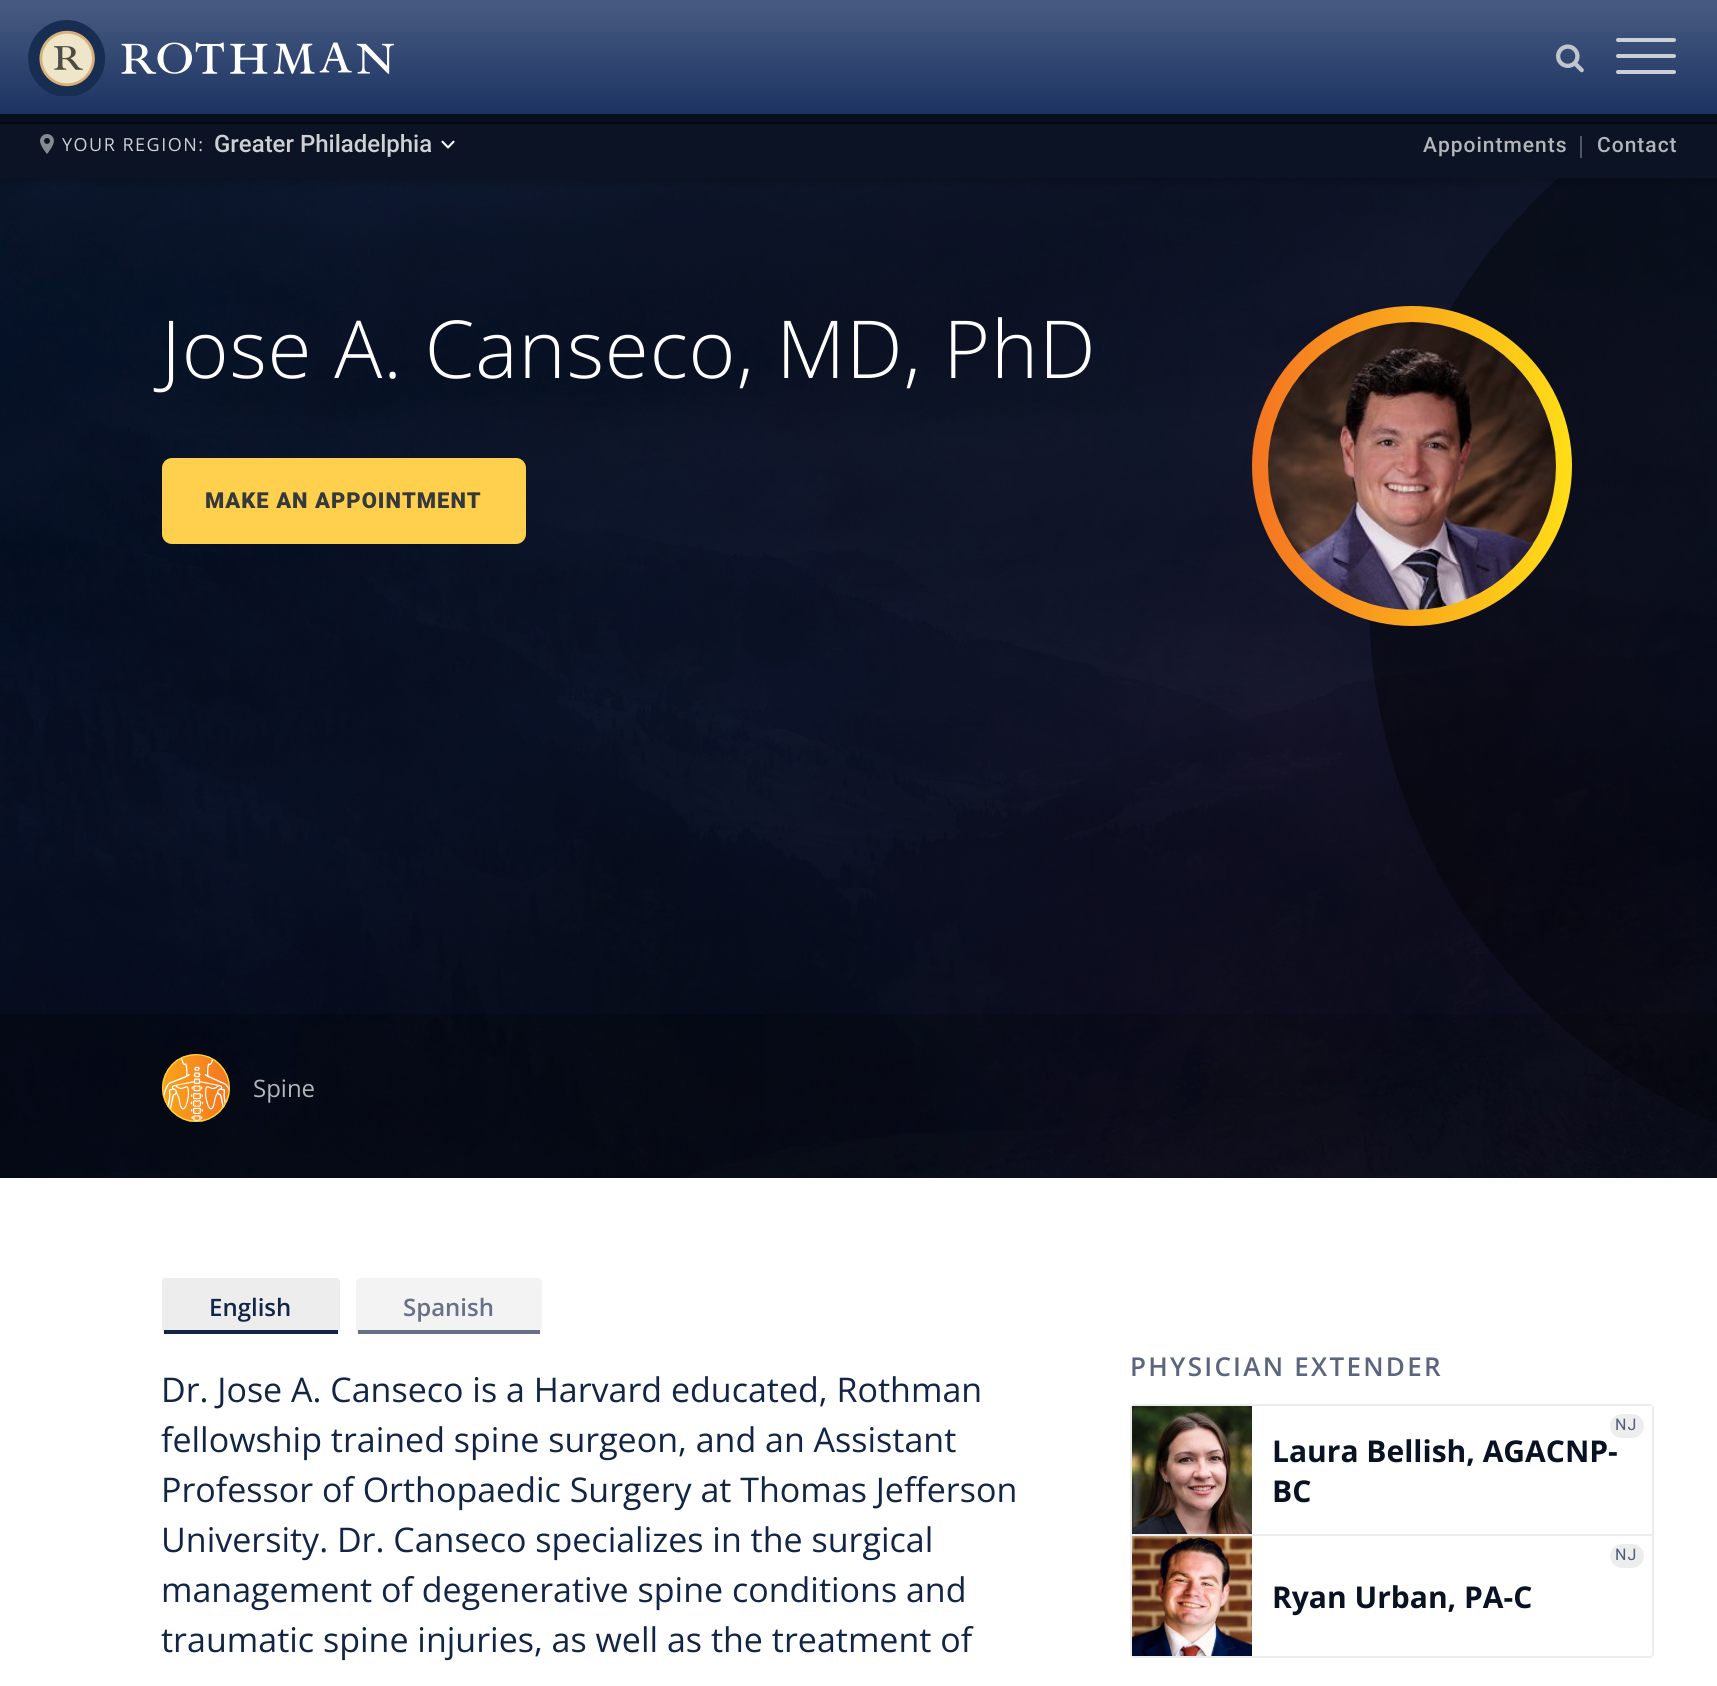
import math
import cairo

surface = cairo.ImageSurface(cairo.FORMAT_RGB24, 1717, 1686)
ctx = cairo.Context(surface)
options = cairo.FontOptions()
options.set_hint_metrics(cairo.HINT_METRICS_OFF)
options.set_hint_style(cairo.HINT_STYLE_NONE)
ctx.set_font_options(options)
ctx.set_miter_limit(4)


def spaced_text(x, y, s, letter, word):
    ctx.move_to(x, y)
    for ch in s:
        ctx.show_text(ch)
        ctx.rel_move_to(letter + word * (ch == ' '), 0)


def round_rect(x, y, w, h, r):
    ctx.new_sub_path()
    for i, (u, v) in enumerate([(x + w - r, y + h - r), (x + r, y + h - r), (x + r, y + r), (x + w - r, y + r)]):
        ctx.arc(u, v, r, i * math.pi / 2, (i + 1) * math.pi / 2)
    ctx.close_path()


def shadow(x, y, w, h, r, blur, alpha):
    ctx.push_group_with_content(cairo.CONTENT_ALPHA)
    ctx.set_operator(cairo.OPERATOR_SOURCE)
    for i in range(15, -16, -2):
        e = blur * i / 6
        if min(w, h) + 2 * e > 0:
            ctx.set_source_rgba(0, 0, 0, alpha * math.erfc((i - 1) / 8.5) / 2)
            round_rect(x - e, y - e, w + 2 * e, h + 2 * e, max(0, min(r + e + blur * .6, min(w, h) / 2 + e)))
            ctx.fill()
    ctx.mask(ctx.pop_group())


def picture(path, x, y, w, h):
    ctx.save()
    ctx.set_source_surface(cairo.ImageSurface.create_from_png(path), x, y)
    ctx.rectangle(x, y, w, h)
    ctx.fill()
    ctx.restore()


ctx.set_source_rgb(1, 1, 1)
ctx.paint()
picture("img5.png", 0, 178, 1717, 1000)
ctx.set_source_rgb(0, 0, 0)
shadow(0, 118, 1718, 64, 0, 4, 0.2)
gradient = cairo.LinearGradient(859, 0, 859, 114)
gradient.add_color_stop_rgba(0.05, 0.275, 0.353, 0.502, 1)
gradient.add_color_stop_rgba(0.98, 0.114, 0.204, 0.388, 1)
ctx.set_source(gradient)
ctx.rectangle(0, 0, 1717, 114)
ctx.fill()
picture("img1.png", 28, 20, 366, 76)
picture("img2.png", 1556, 44, 28, 29)
ctx.set_source_rgb(0.804, 0.816, 0.843)
round_rect(1616, 38, 60, 4, 2)
ctx.fill()
ctx.set_source_rgb(0.8, 0.812, 0.839)
round_rect(1616, 54, 60, 4, 2)
ctx.fill()
ctx.set_source_rgb(0.796, 0.808, 0.839)
round_rect(1616, 70, 60, 4, 2)
ctx.fill()
ctx.set_source_rgb(0.043, 0.078, 0.145)
ctx.rectangle(0, 124, 1717, 54)
ctx.fill()
ctx.set_source_rgb(0.024, 0.039, 0.075)
ctx.rectangle(0, 122, 1717, 2)
ctx.fill()
ctx.set_source_rgb(0.031, 0.059, 0.11)
ctx.rectangle(0, 114, 1717, 8)
ctx.fill()
picture("img3.png", 40, 134, 14, 20)
ctx.select_font_face("Open Sans")
ctx.set_font_size(18)
ctx.set_source_rgb(0.808, 0.816, 0.827)
spaced_text(62, 151, "YOUR REGION:", 1.5, 0)
picture("img4.png", 441, 140, 14, 9)
ctx.select_font_face("Roboto Medium")
ctx.set_font_size(24)
ctx.move_to(214, 152)
ctx.show_text("Greater Philadelphia")
ctx.set_font_size(21)
ctx.set_source_rgb(0.706, 0.71, 0.725)
spaced_text(1423, 152, "Appointments", 1, 0)
ctx.set_source_rgb(0.31, 0.337, 0.384)
ctx.rectangle(1580, 136, 2, 22)
ctx.fill()
ctx.set_source_rgb(0.706, 0.71, 0.725)
spaced_text(1597, 152, "Contact", 1, 0)
ctx.select_font_face("Open Sans Light")
ctx.set_font_size(80)
ctx.set_source_rgb(1, 1, 1)
spaced_text(161, 378, "Jose A. Canseco, MD, PhD", 0.9, 0)
gradient = cairo.LinearGradient(1252, 466, 1572, 466)
gradient.add_color_stop_rgba(0, 0.957, 0.455, 0.129, 1)
gradient.add_color_stop_rgba(1, 1, 0.871, 0.09, 1)
ctx.set_source(gradient)
ctx.new_path()
ctx.arc(1412, 466, 160, 0, 2 * math.pi)
ctx.fill()
picture("img6.png", 1268, 322, 288, 288)
ctx.set_source_rgb(1, 0.816, 0.306)
round_rect(162, 458, 364, 86, 10)
ctx.fill()
ctx.select_font_face("Roboto Black")
ctx.set_font_size(22)
ctx.set_source_rgb(0.212, 0.224, 0.231)
spaced_text(205, 508, "MAKE AN APPOINTMENT", 1, 0)
picture("img7.png", 162, 1054, 68, 68)
ctx.select_font_face("Open Sans")
ctx.set_font_size(24)
ctx.set_source_rgb(0.706, 0.71, 0.725)
ctx.move_to(253, 1097)
ctx.show_text("Spine")
ctx.set_source_rgb(0.929, 0.929, 0.929)
round_rect(162, 1278, 178, 56, 4)
ctx.fill()
ctx.set_source_rgb(0.078, 0.145, 0.275)
ctx.rectangle(164, 1330, 174, 4)
ctx.fill()
ctx.select_font_face("Open Sans SemiBold")
ctx.move_to(209, 1316)
ctx.show_text("English")
ctx.set_source_rgb(0.953, 0.953, 0.953)
round_rect(356, 1278, 186, 56, 4)
ctx.fill()
ctx.set_source_rgb(0.4, 0.443, 0.529)
ctx.rectangle(358, 1330, 182, 4)
ctx.fill()
ctx.move_to(403, 1316)
ctx.show_text("Spanish")
ctx.select_font_face("Open Sans")
ctx.set_font_size(34)
ctx.set_source_rgb(0.078, 0.145, 0.275)
ctx.move_to(161, 1402)
ctx.show_text("Dr. Jose A. Canseco is a Harvard educated, Rothman")
ctx.move_to(161, 1452)
ctx.show_text("fellowship trained spine surgeon, and an Assistant")
ctx.move_to(161, 1502)
ctx.show_text("Professor of Orthopaedic Surgery at Thomas Jefferson")
ctx.move_to(161, 1552)
ctx.show_text("University. Dr. Canseco specializes in the surgical")
ctx.move_to(161, 1602)
ctx.show_text("management of degenerative spine conditions and")
ctx.move_to(161, 1652)
ctx.show_text("traumatic spine injuries, as well as the treatment of")
ctx.select_font_face("Open Sans SemiBold")
ctx.set_font_size(26)
ctx.set_source_rgb(0.357, 0.4, 0.494)
spaced_text(1130, 1376, "PHYSICIAN EXTENDER", 2.25, 0)
ctx.set_source_rgb(0.929, 0.929, 0.929)
ctx.rectangle(1132, 1404, 520, 2)
ctx.fill()
ctx.rectangle(1652, 1406, 2, 128)
ctx.fill()
ctx.rectangle(1130, 1406, 2, 128)
ctx.fill()
picture("img8.png", 1132, 1406, 120, 128)
round_rect(1610, 1414, 34, 24, 12)
ctx.fill()
ctx.select_font_face("Roboto")
ctx.set_font_size(16)
ctx.set_source_rgb(0.31, 0.361, 0.459)
spaced_text(1615, 1430, "NJ", 1, 0)
ctx.select_font_face("Open Sans", cairo.FONT_SLANT_NORMAL, cairo.FONT_WEIGHT_BOLD)
ctx.set_font_size(30)
ctx.set_source_rgb(0.035, 0.071, 0.137)
ctx.move_to(1272, 1462)
ctx.show_text("Laura Bellish, AGACNP-")
ctx.move_to(1272, 1502)
ctx.show_text("BC")
ctx.new_path()
ctx.move_to(1131, 1535)
ctx.line_to(1653, 1535)
ctx.line_to(1653, 1654)
ctx.curve_to(1653, 1655.5, 1651.5, 1657, 1650, 1657)
ctx.line_to(1134, 1657)
ctx.curve_to(1132.5, 1657, 1131, 1655.5, 1131, 1654)
ctx.close_path()
ctx.set_source_rgb(0.929, 0.929, 0.929)
ctx.stroke()
picture("img9.png", 1132, 1536, 120, 120)
round_rect(1610, 1544, 34, 24, 12)
ctx.fill()
ctx.select_font_face("Roboto")
ctx.set_font_size(16)
ctx.set_source_rgb(0.31, 0.361, 0.459)
spaced_text(1615, 1560, "NJ", 1, 0)
ctx.select_font_face("Open Sans", cairo.FONT_SLANT_NORMAL, cairo.FONT_WEIGHT_BOLD)
ctx.set_font_size(30)
ctx.set_source_rgb(0.035, 0.071, 0.137)
ctx.move_to(1272, 1608)
ctx.show_text("Ryan Urban, PA-C")
surface.write_to_png("page.png")
